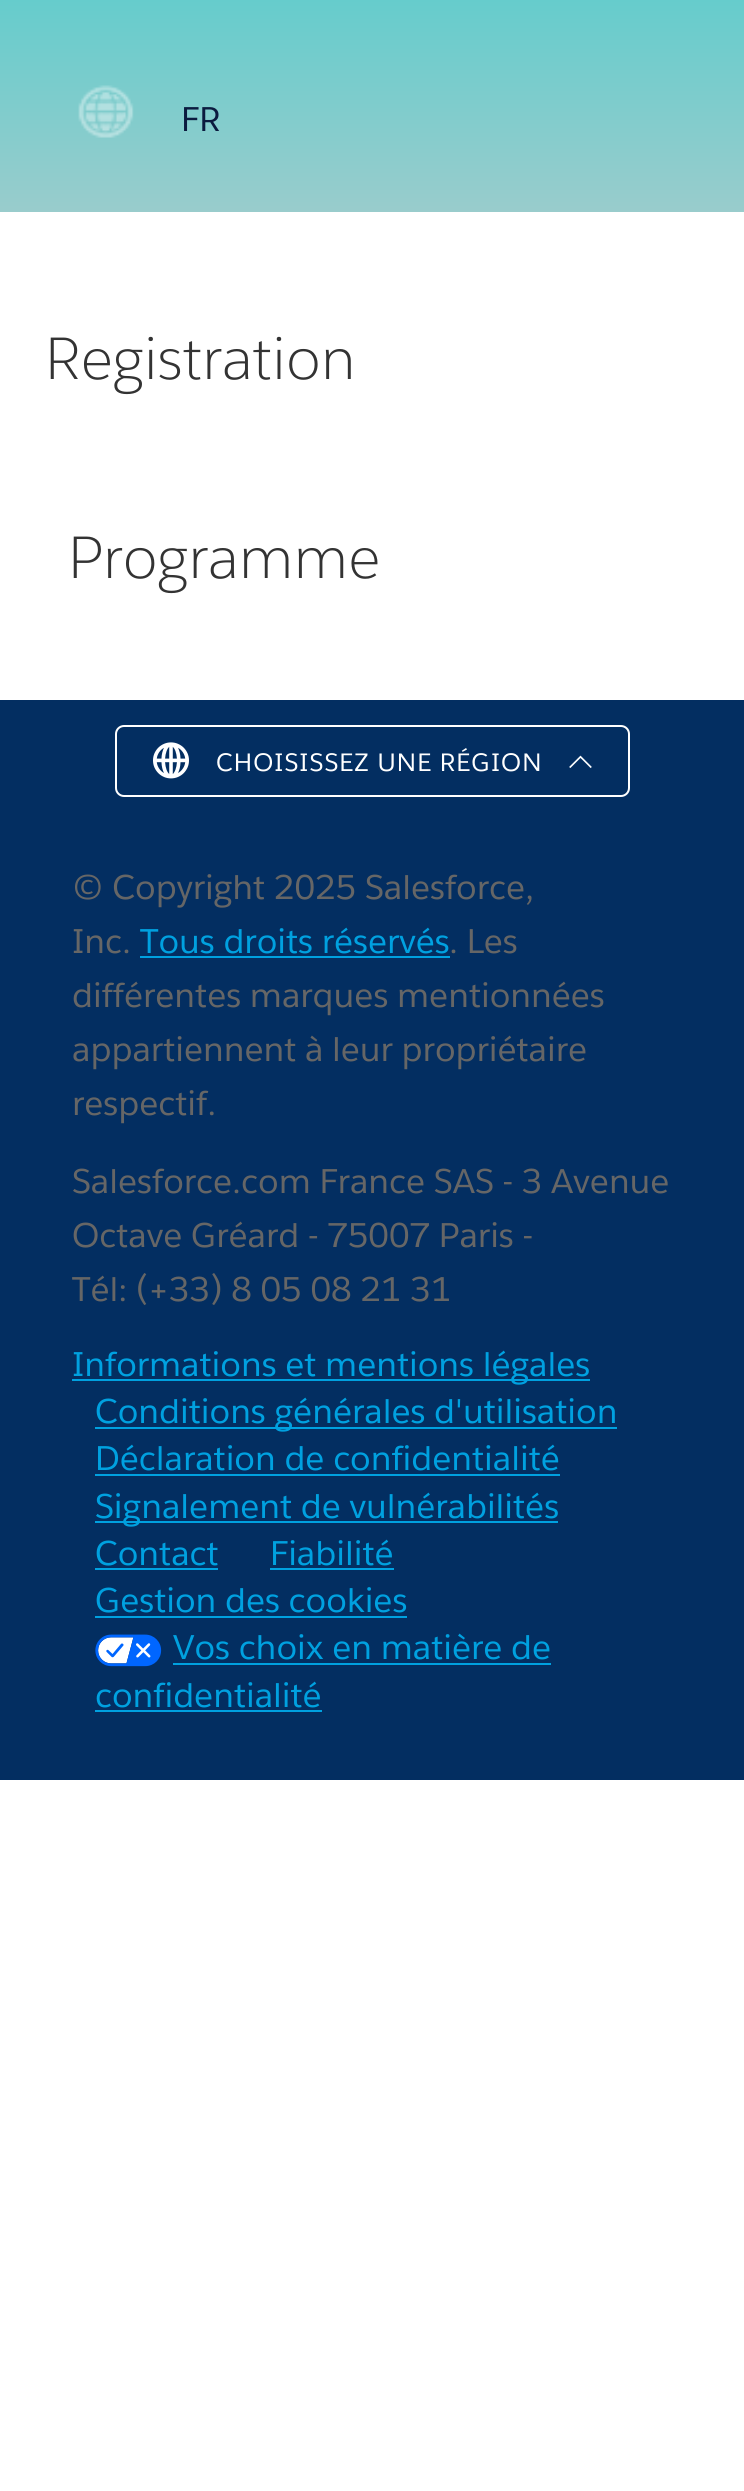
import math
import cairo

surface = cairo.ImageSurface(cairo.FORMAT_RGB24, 744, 2491)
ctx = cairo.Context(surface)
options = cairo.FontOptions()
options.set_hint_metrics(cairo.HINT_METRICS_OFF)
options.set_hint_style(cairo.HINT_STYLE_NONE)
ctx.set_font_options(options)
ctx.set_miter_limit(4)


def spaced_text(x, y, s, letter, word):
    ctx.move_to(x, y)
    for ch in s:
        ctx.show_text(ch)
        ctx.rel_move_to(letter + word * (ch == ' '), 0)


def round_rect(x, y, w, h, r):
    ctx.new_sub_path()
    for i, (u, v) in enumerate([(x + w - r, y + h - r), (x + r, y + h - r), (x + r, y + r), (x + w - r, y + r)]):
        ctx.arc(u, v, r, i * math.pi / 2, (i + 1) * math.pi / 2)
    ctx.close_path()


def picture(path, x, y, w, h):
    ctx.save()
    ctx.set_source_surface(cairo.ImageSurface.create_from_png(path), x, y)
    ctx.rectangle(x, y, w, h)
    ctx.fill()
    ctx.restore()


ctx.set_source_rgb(1, 1, 1)
ctx.paint()
gradient = cairo.LinearGradient(372, 0, 372, 212)
gradient.add_color_stop_rgba(0, 0.4, 0.8, 0.8, 1)
gradient.add_color_stop_rgba(0.5, 0.498, 0.8, 0.8, 1)
gradient.add_color_stop_rgba(1, 0.6, 0.8, 0.8, 1)
ctx.set_source(gradient)
ctx.rectangle(0, 0, 744, 212)
ctx.fill()
picture("img1.png", 78, 85, 56, 53)
ctx.select_font_face("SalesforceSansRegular")
ctx.set_font_size(33.75)
ctx.set_source_rgb(0.043, 0.106, 0.247)
ctx.move_to(181, 131)
ctx.show_text("FR")
ctx.select_font_face("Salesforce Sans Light")
ctx.set_font_size(58.5)
ctx.set_source_rgb(0.2, 0.2, 0.2)
ctx.move_to(45, 379)
ctx.show_text("Registration")
ctx.move_to(68, 578)
ctx.show_text("Programme")
ctx.set_source_rgb(0.012, 0.18, 0.38)
ctx.rectangle(0, 700, 744, 1080)
ctx.fill()
round_rect(116, 726, 513, 70, 8)
ctx.set_source_rgb(1, 1, 1)
ctx.stroke()
picture("img2.png", 153, 742, 36, 37)
ctx.select_font_face("SalesforceSansRegular")
ctx.set_font_size(24.75)
spaced_text(216, 771, "CHOISISSEZ UNE RÉGION", 1.1, 0)
picture("img3.png", 569, 755, 23, 13)
ctx.set_font_size(33.75)
ctx.set_source_rgb(0.4, 0.4, 0.4)
ctx.move_to(72, 899)
ctx.show_text("© Copyright 2025 Salesforce,")
ctx.move_to(72, 953)
ctx.show_text("Inc.")
ctx.set_source_rgb(0, 0.631, 0.878)
ctx.move_to(140, 953)
ctx.show_text("Tous droits réservés")
ctx.rectangle(140, 956, 310, 2)
ctx.fill()
ctx.set_source_rgb(0.4, 0.4, 0.4)
ctx.move_to(449, 953)
ctx.show_text(". Les")
ctx.move_to(72, 1007)
ctx.show_text("différentes marques mentionnées")
ctx.move_to(72, 1061)
ctx.show_text("appartiennent à leur propriétaire")
ctx.move_to(72, 1115)
ctx.show_text("respectif.")
ctx.move_to(72, 1193)
ctx.show_text("Salesforce.com France SAS - 3 Avenue")
ctx.move_to(72, 1247)
ctx.show_text("Octave Gréard - 75007 Paris -")
ctx.move_to(72, 1301)
ctx.show_text("Tél: (+33) 8 05 08 21 31")
ctx.set_source_rgb(0, 0.631, 0.878)
ctx.rectangle(72, 1379, 518, 2)
ctx.fill()
ctx.move_to(72, 1376)
ctx.show_text("Informations et mentions légales")
ctx.rectangle(95, 1427, 522, 2)
ctx.fill()
ctx.move_to(95, 1423)
ctx.show_text("Conditions générales d'utilisation")
ctx.move_to(95, 1470)
ctx.show_text("Déclaration de confidentialité")
ctx.rectangle(95, 1474, 465, 2)
ctx.fill()
ctx.rectangle(95, 1521, 463, 2)
ctx.fill()
ctx.move_to(95, 1518)
ctx.show_text("Signalement de vulnérabilités")
ctx.move_to(95, 1565)
ctx.show_text("Contact")
ctx.rectangle(95, 1568, 123, 2)
ctx.fill()
ctx.move_to(270, 1565)
ctx.show_text("Fiabilité")
ctx.rectangle(270, 1568, 124, 2)
ctx.fill()
ctx.move_to(95, 1612)
ctx.show_text("Gestion des cookies")
ctx.rectangle(95, 1616, 312, 2)
ctx.fill()
picture("img4.png", 95, 1634, 67, 33)
ctx.move_to(173, 1659)
ctx.show_text("Vos choix en matière de")
ctx.rectangle(173, 1663, 378, 2)
ctx.fill()
ctx.move_to(95, 1707)
ctx.show_text("confidentialité")
ctx.rectangle(95, 1710, 227, 2)
ctx.fill()
surface.write_to_png("page.png")
